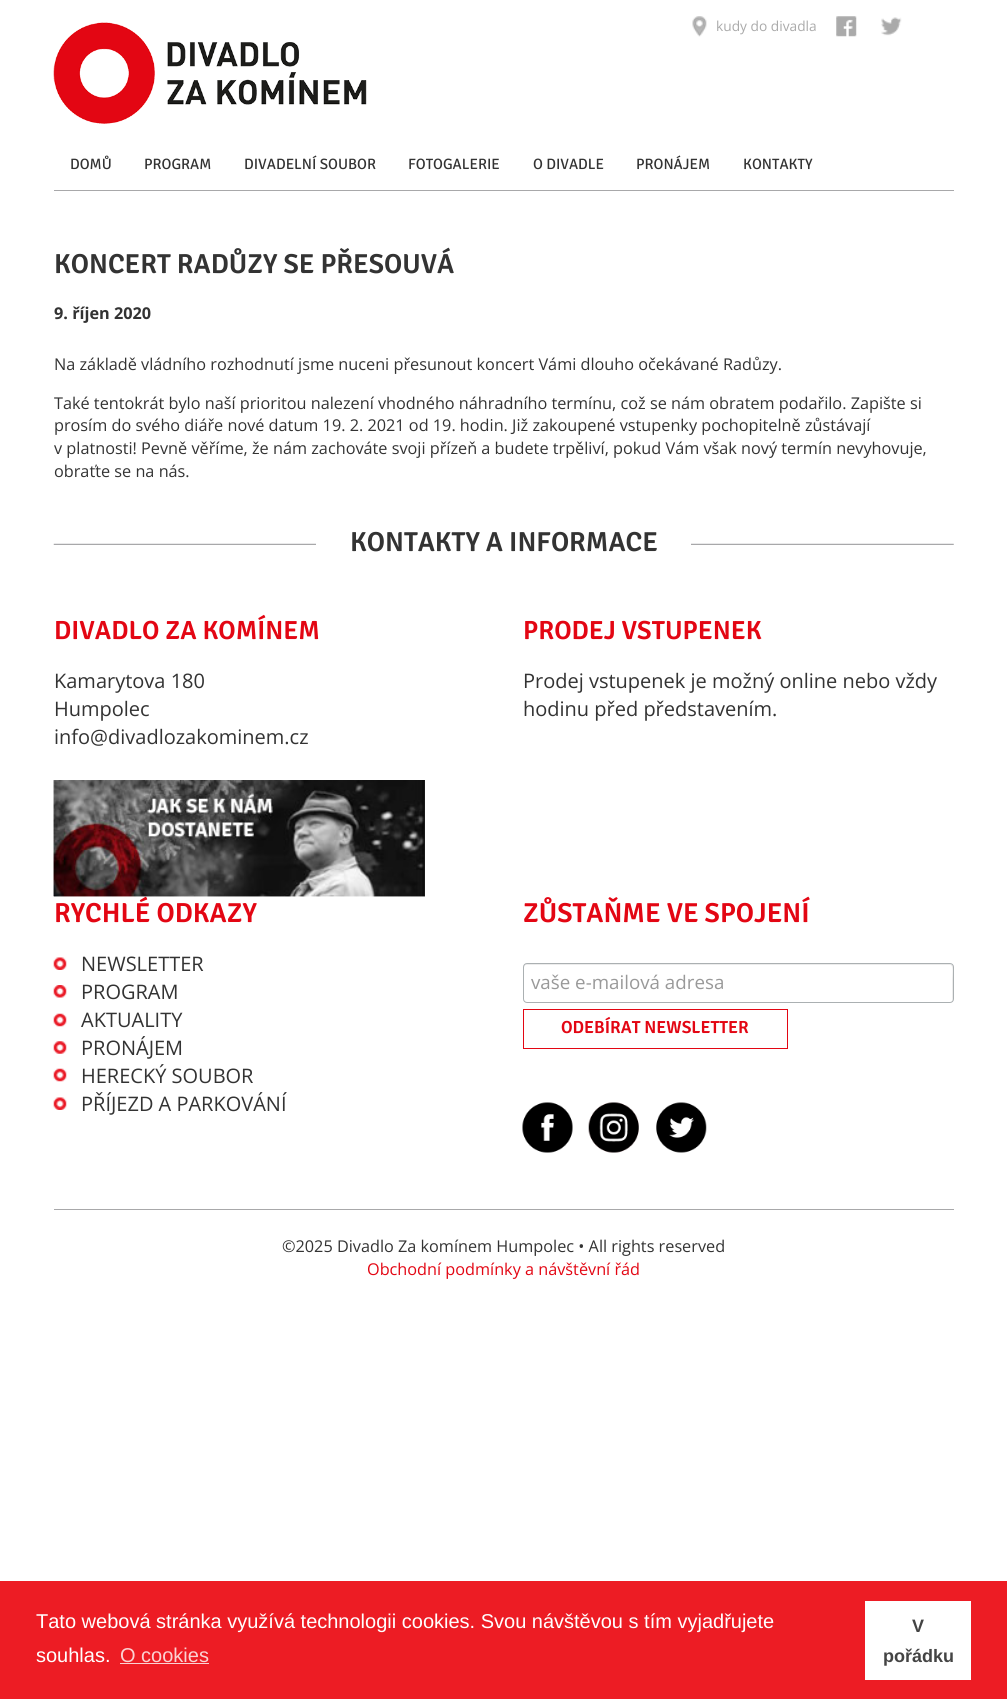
import math
import cairo

surface = cairo.ImageSurface(cairo.FORMAT_RGB24, 1007, 1699)
ctx = cairo.Context(surface)
options = cairo.FontOptions()
options.set_hint_metrics(cairo.HINT_METRICS_OFF)
options.set_hint_style(cairo.HINT_STYLE_NONE)
ctx.set_font_options(options)
ctx.set_miter_limit(4)


def round_rect(x, y, w, h, r):
    ctx.new_sub_path()
    for i, (u, v) in enumerate([(x + w - r, y + h - r), (x + r, y + h - r), (x + r, y + r), (x + w - r, y + r)]):
        ctx.arc(u, v, r, i * math.pi / 2, (i + 1) * math.pi / 2)
    ctx.close_path()


def picture(path, x, y, w, h):
    ctx.save()
    ctx.set_source_surface(cairo.ImageSurface.create_from_png(path), x, y)
    ctx.rectangle(x, y, w, h)
    ctx.fill()
    ctx.restore()


ctx.set_source_rgb(1, 1, 1)
ctx.paint()
picture("img1.png", 53, 22, 314, 102)
picture("img2.png", 692, 16, 15, 21)
ctx.select_font_face("Open Sans")
ctx.set_font_size(13.75)
ctx.set_source_rgb(0.667, 0.667, 0.667)
ctx.move_to(716, 31)
ctx.show_text("kudy do divadla")
picture("img3.png", 836, 16, 21, 21)
picture("img4.png", 881, 17, 21, 19)
ctx.select_font_face("Signika")
ctx.set_font_size(15)
ctx.set_source_rgb(0.2, 0.2, 0.2)
ctx.move_to(70, 169)
ctx.show_text("DOMŮ")
ctx.move_to(144, 169)
ctx.show_text("PROGRAM")
ctx.move_to(244, 169)
ctx.show_text("DIVADELNÍ SOUBOR")
ctx.move_to(408, 169)
ctx.show_text("FOTOGALERIE")
ctx.move_to(533, 169)
ctx.show_text("O DIVADLE")
ctx.move_to(636, 169)
ctx.show_text("PRONÁJEM")
ctx.move_to(743, 169)
ctx.show_text("KONTAKTY")
ctx.set_source_rgb(0.659, 0.659, 0.667)
ctx.rectangle(54, 190, 900, 1)
ctx.fill()
ctx.select_font_face("Signika SemiBold")
ctx.set_font_size(27.5)
ctx.set_source_rgb(0.2, 0.2, 0.2)
ctx.move_to(54, 273)
ctx.show_text("KONCERT RADŮZY SE PŘESOUVÁ")
ctx.select_font_face("Open Sans", cairo.FONT_SLANT_NORMAL, cairo.FONT_WEIGHT_BOLD)
ctx.set_font_size(16.25)
ctx.move_to(54, 319)
ctx.show_text("9. říjen 2020")
ctx.select_font_face("Open Sans")
ctx.move_to(54, 370)
ctx.show_text("Na základě vládního rozhodnutí jsme nuceni přesunout koncert Vámi dlouho očekávané Radůzy.")
ctx.move_to(54, 409)
ctx.show_text("Také tentokrát bylo naší prioritou nalezení vhodného náhradního termínu, což se nám obratem podařilo. Zapište si")
ctx.move_to(54, 431)
ctx.show_text("prosím do svého diáře nové datum 19. 2. 2021 od 19. hodin. Již zakoupené vstupenky pochopitelně zůstávají")
ctx.move_to(54, 454)
ctx.show_text("v platnosti! Pevně věříme, že nám zachováte svoji přízeň a budete trpěliví, pokud Vám však nový termín nevyhovuje,")
ctx.move_to(54, 477)
ctx.show_text("obraťte se na nás.")
picture("img5.png", 53, 543, 901, 2)
ctx.set_source_rgb(1, 1, 1)
ctx.rectangle(316, 543, 375, 2)
ctx.fill()
ctx.select_font_face("Signika SemiBold")
ctx.set_font_size(27.5)
ctx.set_source_rgb(0.2, 0.2, 0.2)
ctx.move_to(350, 551)
ctx.show_text("KONTAKTY A INFORMACE")
ctx.set_font_size(26.25)
ctx.set_source_rgb(0.89, 0.024, 0.075)
ctx.move_to(54, 639)
ctx.show_text("DIVADLO ZA KOMÍNEM")
ctx.select_font_face("Open Sans")
ctx.set_font_size(20)
ctx.set_source_rgb(0.2, 0.2, 0.2)
ctx.move_to(54, 688)
ctx.show_text("Kamarytova 180")
ctx.move_to(54, 716)
ctx.show_text("Humpolec")
ctx.move_to(54, 744)
ctx.show_text("info@divadlozakominem.cz")
picture("img6.png", 53, 780, 372, 117)
picture("img7.png", 53, 780, 372, 117)
ctx.select_font_face("Signika SemiBold")
ctx.set_font_size(26.25)
ctx.set_source_rgb(0.89, 0.024, 0.075)
ctx.move_to(523, 639)
ctx.show_text("PRODEJ VSTUPENEK")
ctx.select_font_face("Open Sans")
ctx.set_font_size(20)
ctx.set_source_rgb(0.2, 0.2, 0.2)
ctx.move_to(523, 688)
ctx.show_text("Prodej vstupenek je možný online nebo vždy")
ctx.move_to(523, 716)
ctx.show_text("hodinu před představením.")
ctx.select_font_face("Signika SemiBold")
ctx.set_font_size(27.5)
ctx.set_source_rgb(0.89, 0.024, 0.075)
ctx.move_to(54, 922)
ctx.show_text("RYCHLÉ ODKAZY")
picture("img8.png", 53, 957, 14, 13)
ctx.select_font_face("Open Sans")
ctx.set_font_size(20)
ctx.set_source_rgb(0.2, 0.2, 0.2)
ctx.move_to(81, 971)
ctx.show_text("NEWSLETTER")
picture("img9.png", 53, 985, 14, 13)
ctx.move_to(81, 999)
ctx.show_text("PROGRAM")
picture("img10.png", 53, 1013, 14, 14)
ctx.move_to(81, 1027)
ctx.show_text("AKTUALITY")
picture("img11.png", 53, 1041, 14, 13)
ctx.move_to(81, 1055)
ctx.show_text("PRONÁJEM")
picture("img10.png", 53, 1068, 14, 14)
ctx.move_to(81, 1083)
ctx.show_text("HERECKÝ SOUBOR")
picture("img8.png", 53, 1097, 14, 13)
ctx.move_to(81, 1111)
ctx.show_text("PŘÍJEZD A PARKOVÁNÍ")
ctx.select_font_face("Signika SemiBold")
ctx.set_font_size(27.5)
ctx.set_source_rgb(0.89, 0.024, 0.075)
ctx.move_to(523, 922)
ctx.show_text("ZŮSTAŇME VE SPOJENÍ")
ctx.set_source_rgb(0.925, 0.925, 0.925)
ctx.new_path()
ctx.move_to(526, 965)
ctx.line_to(950, 965)
ctx.curve_to(954, 965, 952, 977, 952, 979)
ctx.line_to(952, 1001)
ctx.curve_to(953, 1000, 953, 999, 953, 998)
ctx.line_to(953, 966)
ctx.curve_to(953, 965, 952, 964, 950, 964)
ctx.line_to(526, 964)
ctx.curve_to(525, 964, 524, 965, 524, 966)
ctx.line_to(524, 968)
ctx.curve_to(524, 966, 525, 965, 526, 965)
ctx.close_path()
ctx.fill()
round_rect(523.5, 963.5, 430, 39, 3.5)
ctx.set_source_rgb(0.671, 0.69, 0.698)
ctx.set_line_width(1)
ctx.stroke()
ctx.select_font_face("Open Sans")
ctx.set_font_size(18.75)
ctx.set_source_rgb(0.6, 0.6, 0.6)
ctx.move_to(531, 989)
ctx.show_text("vaše e-mailová adresa")
ctx.rectangle(523.5, 1009.5, 264, 39)
ctx.set_source_rgb(0.89, 0.024, 0.075)
ctx.stroke()
ctx.select_font_face("Signika SemiBold")
ctx.set_font_size(17.5)
ctx.move_to(561, 1033)
ctx.show_text("ODEBÍRAT NEWSLETTER")
picture("img12.png", 522, 1102, 51, 51)
picture("img13.png", 588, 1102, 51, 51)
picture("img14.png", 656, 1102, 51, 51)
ctx.set_source_rgb(0.659, 0.659, 0.667)
ctx.rectangle(54, 1209, 900, 1)
ctx.fill()
ctx.select_font_face("Open Sans")
ctx.set_font_size(16.25)
ctx.set_source_rgb(0.2, 0.2, 0.2)
ctx.move_to(282, 1252)
ctx.show_text("©2025 Divadlo Za komínem Humpolec • All rights reserved")
ctx.set_source_rgb(0.89, 0.024, 0.075)
ctx.move_to(367, 1275)
ctx.show_text("Obchodní podmínky a návštěvní řád")
ctx.set_source_rgb(0.929, 0.11, 0.141)
ctx.rectangle(0, 1581, 1007, 118)
ctx.fill()
ctx.select_font_face("Liberation Sans")
ctx.set_font_size(20)
ctx.set_source_rgb(1, 1, 1)
ctx.move_to(36, 1628)
ctx.show_text("Tato webová stránka využívá technologii cookies. Svou návštěvou s tím vyjadřujete")
ctx.move_to(36, 1662)
ctx.show_text("souhlas.")
ctx.set_source_rgb(0.984, 0.824, 0.827)
ctx.move_to(120, 1662)
ctx.show_text("O cookies")
ctx.rectangle(120, 1663, 89, 1)
ctx.fill()
ctx.set_source_rgb(1, 1, 1)
ctx.rectangle(865, 1601, 106, 79)
ctx.fill()
ctx.select_font_face("Liberation Sans", cairo.FONT_SLANT_NORMAL, cairo.FONT_WEIGHT_BOLD)
ctx.set_font_size(18)
ctx.set_source_rgb(0.267, 0.267, 0.267)
ctx.move_to(912, 1632)
ctx.show_text("V")
ctx.move_to(883, 1662)
ctx.show_text("pořádku")
surface.write_to_png("page.png")
